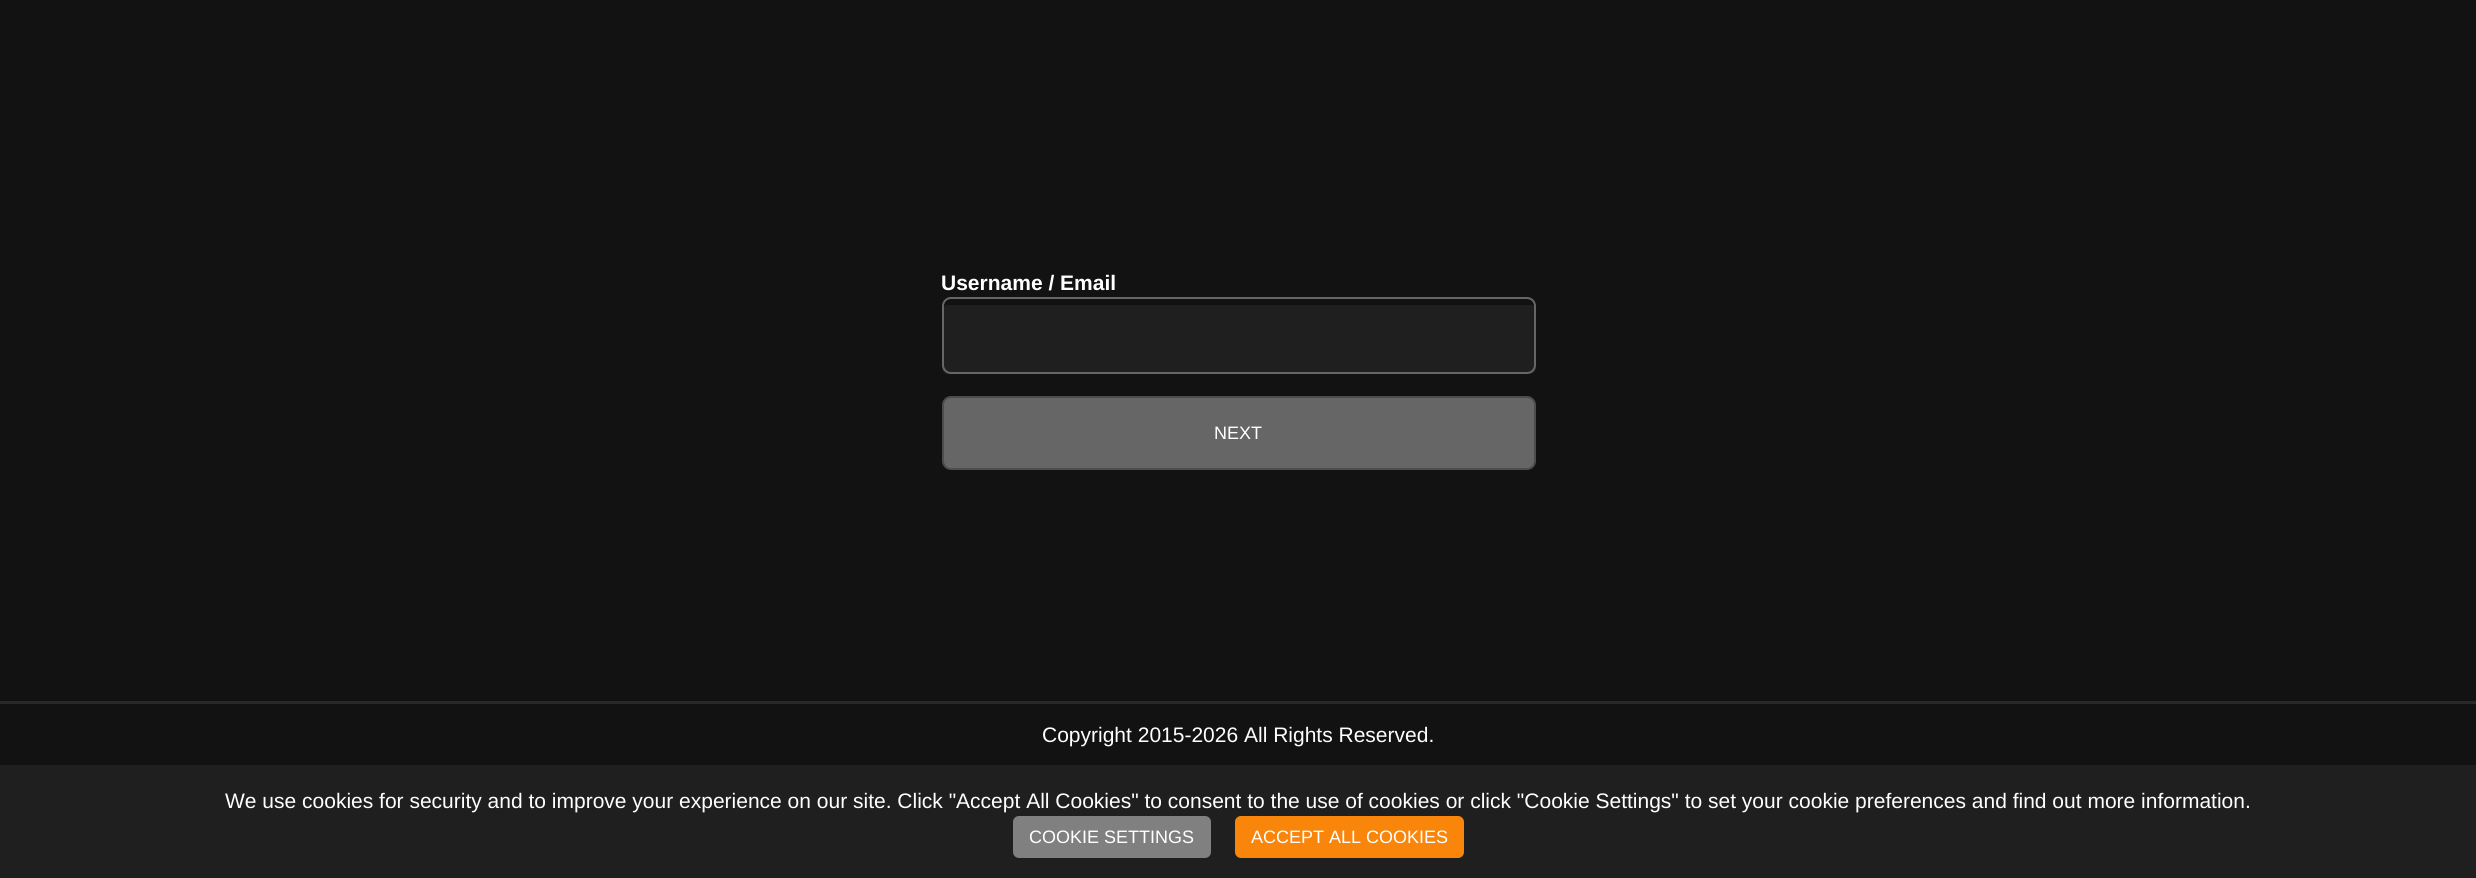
import math
import cairo

surface = cairo.ImageSurface(cairo.FORMAT_RGB24, 2476, 878)
ctx = cairo.Context(surface)
options = cairo.FontOptions()
options.set_hint_metrics(cairo.HINT_METRICS_OFF)
options.set_hint_style(cairo.HINT_STYLE_NONE)
ctx.set_font_options(options)
ctx.set_miter_limit(4)


def round_rect(x, y, w, h, r):
    ctx.new_sub_path()
    for i, (u, v) in enumerate([(x + w - r, y + h - r), (x + r, y + h - r), (x + r, y + r), (x + w - r, y + r)]):
        ctx.arc(u, v, r, i * math.pi / 2, (i + 1) * math.pi / 2)
    ctx.close_path()


ctx.set_source_rgb(0.071, 0.071, 0.071)
ctx.paint()
ctx.select_font_face("Liberation Sans", cairo.FONT_SLANT_NORMAL, cairo.FONT_WEIGHT_BOLD)
ctx.set_font_size(21)
ctx.set_source_rgb(1, 1, 1)
ctx.move_to(941, 290)
ctx.show_text("Username / Email")
ctx.set_source_rgb(0.122, 0.122, 0.122)
round_rect(942, 305, 594, 69, 6)
ctx.fill()
round_rect(943, 298, 592, 75, 8)
ctx.set_source_rgb(0.4, 0.4, 0.4)
ctx.stroke()
round_rect(943, 397, 592, 72, 8)
ctx.fill_preserve()
ctx.set_source_rgb(0.302, 0.302, 0.302)
ctx.stroke()
ctx.select_font_face("Liberation Sans")
ctx.set_font_size(18)
ctx.set_source_rgb(1, 1, 1)
ctx.move_to(1214, 439)
ctx.show_text("NEXT")
ctx.set_source_rgb(0.161, 0.161, 0.161)
ctx.rectangle(0, 701, 2476, 3)
ctx.fill()
ctx.set_font_size(21)
ctx.set_source_rgb(1, 1, 1)
ctx.move_to(1042, 742)
ctx.show_text("Copyright 2015-2026 All Rights Reserved.")
ctx.set_source_rgb(0.122, 0.122, 0.122)
ctx.rectangle(0, 765, 2476, 113)
ctx.fill()
ctx.set_source_rgb(1, 1, 1)
ctx.move_to(225, 808)
ctx.show_text("We use cookies for security and to improve your experience on our site. Click \"Accept All Cookies\" to consent to the use of cookies or click \"Cookie Settings\" to set your cookie preferences and find out more information.")
ctx.set_source_rgb(0.502, 0.502, 0.502)
round_rect(1013, 816, 198, 42, 6)
ctx.fill()
ctx.set_font_size(18)
ctx.set_source_rgb(1, 1, 1)
ctx.move_to(1029, 843)
ctx.show_text("COOKIE SETTINGS")
ctx.set_source_rgb(0.976, 0.525, 0.043)
round_rect(1235, 816, 229, 42, 6)
ctx.fill()
ctx.set_source_rgb(1, 1, 1)
ctx.move_to(1251, 843)
ctx.show_text("ACCEPT ALL COOKIES")
surface.write_to_png("page.png")
